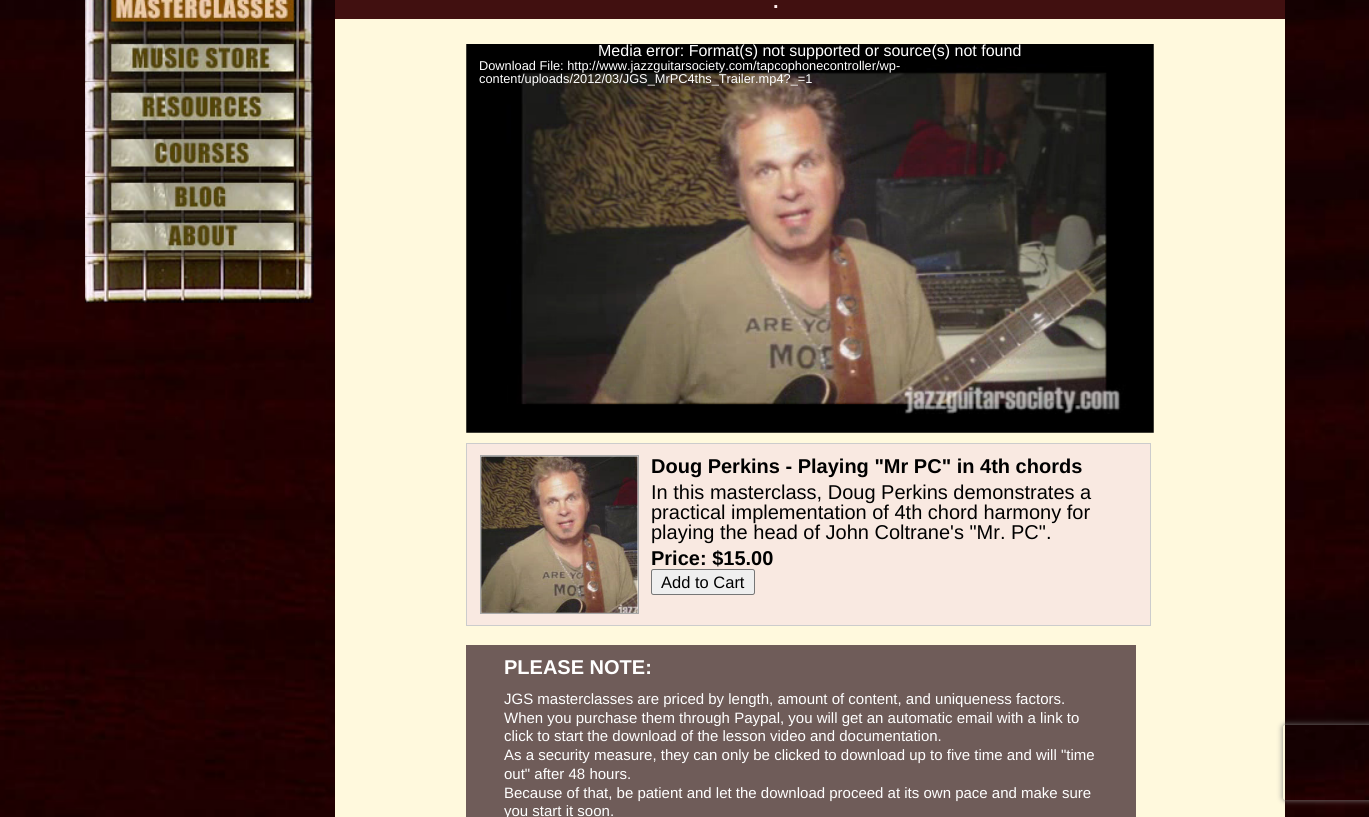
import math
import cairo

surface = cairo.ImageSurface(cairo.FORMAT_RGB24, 1369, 817)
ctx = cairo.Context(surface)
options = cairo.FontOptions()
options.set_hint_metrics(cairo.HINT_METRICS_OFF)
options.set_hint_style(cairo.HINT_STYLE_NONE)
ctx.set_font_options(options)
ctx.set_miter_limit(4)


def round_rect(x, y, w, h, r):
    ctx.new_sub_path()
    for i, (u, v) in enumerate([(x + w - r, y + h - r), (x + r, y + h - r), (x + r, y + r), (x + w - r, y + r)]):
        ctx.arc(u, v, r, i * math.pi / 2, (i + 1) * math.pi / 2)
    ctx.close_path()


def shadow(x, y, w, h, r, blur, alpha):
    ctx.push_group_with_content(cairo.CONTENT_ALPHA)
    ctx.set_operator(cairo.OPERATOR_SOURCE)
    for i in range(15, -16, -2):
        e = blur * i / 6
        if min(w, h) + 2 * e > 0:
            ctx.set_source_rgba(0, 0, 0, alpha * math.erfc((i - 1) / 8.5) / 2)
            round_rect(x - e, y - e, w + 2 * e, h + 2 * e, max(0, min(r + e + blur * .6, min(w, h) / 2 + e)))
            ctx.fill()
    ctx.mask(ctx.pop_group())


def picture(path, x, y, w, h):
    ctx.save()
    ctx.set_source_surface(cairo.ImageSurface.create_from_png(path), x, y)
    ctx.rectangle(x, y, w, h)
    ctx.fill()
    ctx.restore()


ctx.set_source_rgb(1, 1, 1)
ctx.paint()
picture("img1.png", 0, 0, 1369, 817)
picture("img2.png", 85, 0, 229, 34)
picture("img3.png", 85, 34, 229, 48)
picture("img4.png", 85, 81, 229, 51)
picture("img5.png", 85, 131, 229, 46)
picture("img6.png", 85, 176, 229, 42)
picture("img7.png", 85, 217, 229, 40)
picture("img8.png", 85, 256, 229, 47)
ctx.set_source_rgb(1, 0.976, 0.867)
ctx.rectangle(335, 19, 950, 798)
ctx.fill()
ctx.set_source_rgb(0.255, 0.063, 0.063)
ctx.rectangle(335, 0, 950, 19)
ctx.fill()
ctx.select_font_face("Liberation Sans", cairo.FONT_SLANT_NORMAL, cairo.FONT_WEIGHT_BOLD)
ctx.set_font_size(20)
ctx.set_source_rgb(1, 0.918, 0.918)
ctx.move_to(773, 8)
ctx.show_text(".")
picture("img9.png", 466, 44, 688, 389)
ctx.select_font_face("Liberation Sans")
ctx.set_font_size(16)
ctx.set_source_rgb(1, 1, 1)
ctx.move_to(598, 56)
ctx.show_text("Media error: Format(s) not supported or source(s) not found")
ctx.set_font_size(12.8)
ctx.move_to(479, 70)
ctx.show_text("Download File: http://www.jazzguitarsociety.com/tapcophonecontroller/wp-")
ctx.move_to(479, 83)
ctx.show_text("content/uploads/2012/03/JGS_MrPC4ths_Trailer.mp4?_=1")
ctx.set_source_rgb(0.973, 0.914, 0.882)
ctx.rectangle(466.5, 443.5, 684, 182)
ctx.fill_preserve()
ctx.set_source_rgb(0.8, 0.8, 0.8)
ctx.set_line_width(1)
ctx.stroke()
ctx.set_source_rgb(1, 1, 1)
ctx.rectangle(480.5, 455.5, 158, 158)
ctx.fill_preserve()
ctx.set_source_rgb(0.663, 0.663, 0.663)
ctx.stroke()
picture("img10.png", 481, 456, 157, 157)
ctx.select_font_face("Liberation Sans", cairo.FONT_SLANT_NORMAL, cairo.FONT_WEIGHT_BOLD)
ctx.set_font_size(20)
ctx.set_source_rgb(0, 0, 0)
ctx.move_to(651, 473)
ctx.show_text("Doug Perkins - Playing \"Mr PC\" in 4th chords")
ctx.select_font_face("Liberation Sans")
ctx.move_to(651, 499)
ctx.show_text("In this masterclass, Doug Perkins demonstrates a")
ctx.move_to(651, 519)
ctx.show_text("practical implementation of 4th chord harmony for")
ctx.move_to(651, 539)
ctx.show_text("playing the head of John Coltrane's \"Mr. PC\".")
ctx.select_font_face("Liberation Sans", cairo.FONT_SLANT_NORMAL, cairo.FONT_WEIGHT_BOLD)
ctx.move_to(651, 565)
ctx.show_text("Price: $15.00")
ctx.set_source_rgb(0.937, 0.937, 0.937)
round_rect(651.5, 569.5, 103, 25, 2)
ctx.fill_preserve()
ctx.set_source_rgb(0.463, 0.463, 0.463)
ctx.stroke()
ctx.select_font_face("Liberation Sans")
ctx.set_font_size(16.5)
ctx.set_source_rgb(0, 0, 0)
ctx.move_to(661, 588)
ctx.show_text("Add to Cart")
ctx.set_source_rgb(0.435, 0.361, 0.349)
ctx.rectangle(466, 645, 670, 172)
ctx.fill()
ctx.select_font_face("Liberation Sans", cairo.FONT_SLANT_NORMAL, cairo.FONT_WEIGHT_BOLD)
ctx.set_font_size(20)
ctx.set_source_rgb(1, 1, 1)
ctx.move_to(504, 674)
ctx.show_text("PLEASE NOTE:")
ctx.select_font_face("Liberation Sans")
ctx.set_font_size(15)
ctx.move_to(504, 704)
ctx.show_text("JGS masterclasses are priced by length, amount of content, and uniqueness factors.")
ctx.move_to(504, 723)
ctx.show_text("When you purchase them through Paypal, you will get an automatic email with a link to")
ctx.move_to(504, 741)
ctx.show_text("click to start the download of the lesson video and documentation.")
ctx.move_to(504, 760)
ctx.show_text("As a security measure, they can only be clicked to download up to five time and will \"time")
ctx.move_to(504, 779)
ctx.show_text("out\" after 48 hours.")
ctx.move_to(504, 798)
ctx.show_text("Because of that, be patient and let the download proceed at its own pace and make sure")
ctx.move_to(504, 816)
ctx.show_text("you start it soon.")
ctx.save()
ctx.set_fill_rule(cairo.FILL_RULE_EVEN_ODD)
ctx.new_path()
ctx.move_to(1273, 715)
ctx.line_to(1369, 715)
ctx.line_to(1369, 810)
ctx.line_to(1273, 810)
ctx.close_path()
ctx.move_to(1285.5, 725)
ctx.line_to(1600.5, 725)
ctx.curve_to(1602, 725, 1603, 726, 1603, 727.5)
ctx.line_to(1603, 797.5)
ctx.curve_to(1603, 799, 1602, 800, 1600.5, 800)
ctx.line_to(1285.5, 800)
ctx.curve_to(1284, 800, 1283, 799, 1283, 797.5)
ctx.line_to(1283, 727.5)
ctx.curve_to(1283, 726, 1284, 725, 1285.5, 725)
ctx.close_path()
ctx.clip()
ctx.set_source_rgb(0.502, 0.502, 0.502)
shadow(1283, 725, 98, 75, 2.5, 3, 1)
ctx.restore()
surface.write_to_png("page.png")
